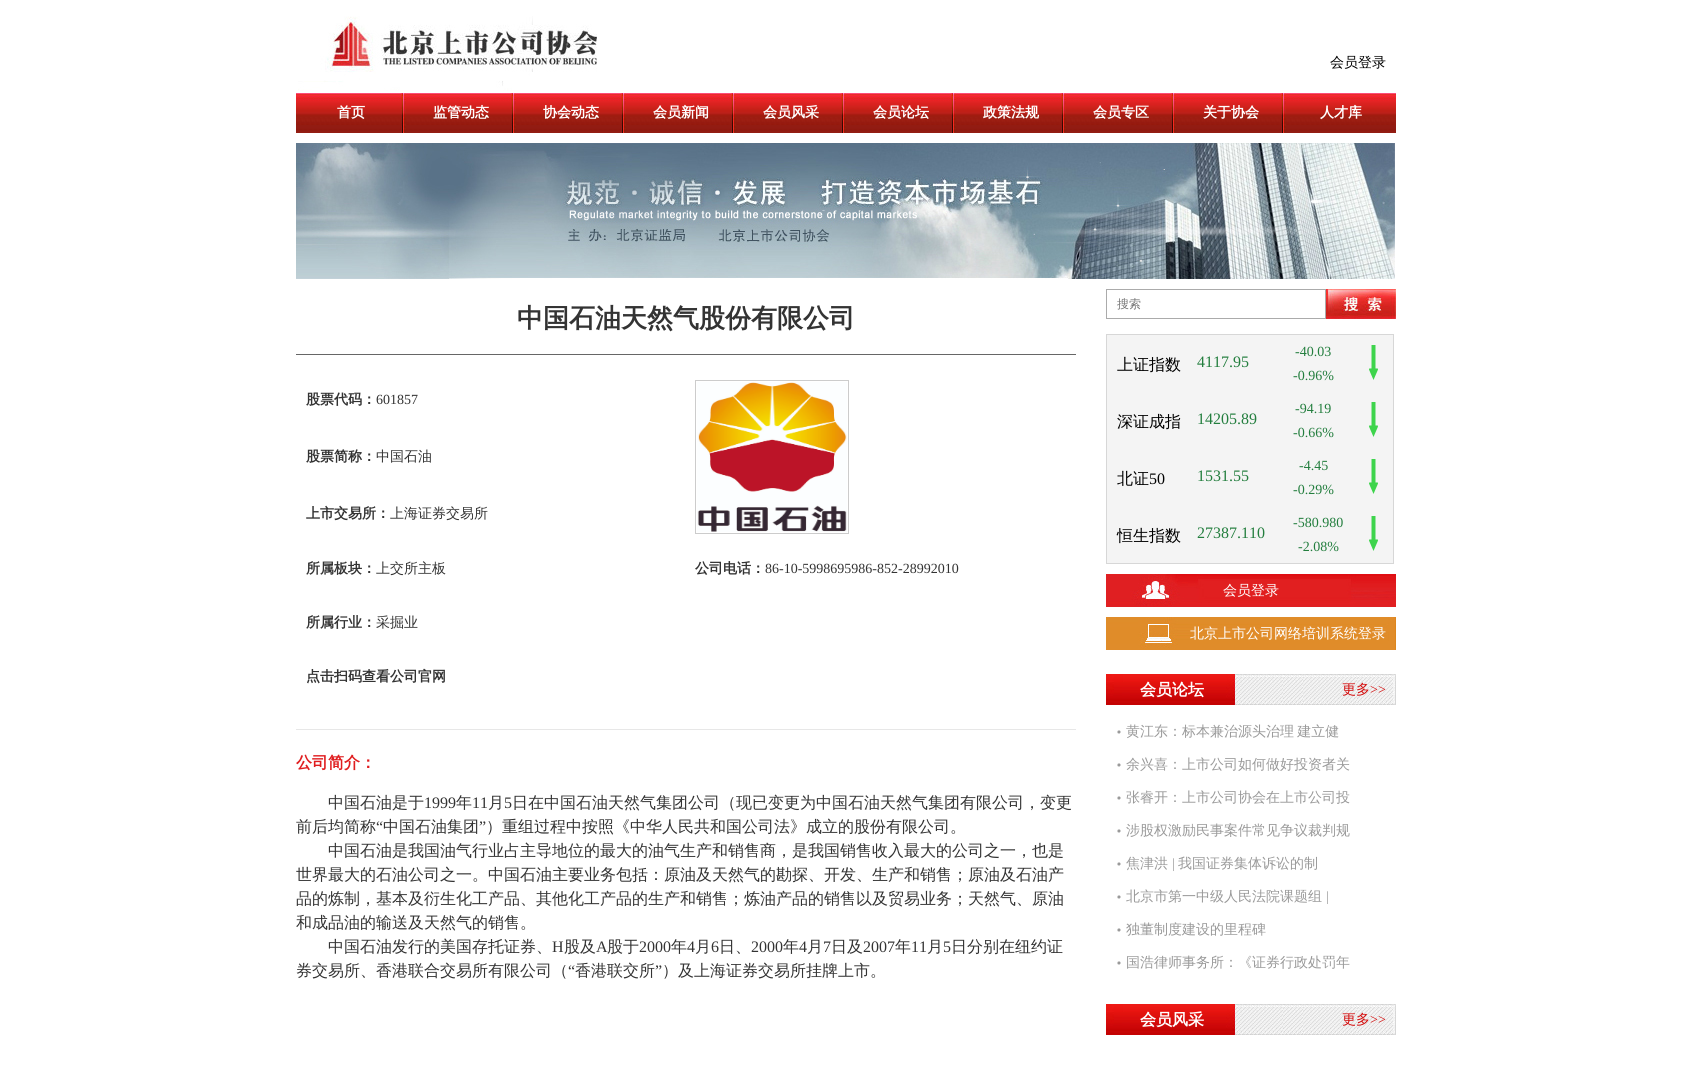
#include <cairo.h>
#include <math.h>
#include <stddef.h>

static cairo_t *c;
static void C(unsigned color){cairo_set_source_rgb(c, (color >> 16) / 255.0, (color >> 8 & 255) / 255.0, (color & 255) / 255.0);}
static void F(const char *family, double size, int italic, int bold){cairo_select_font_face(c, family, italic ? CAIRO_FONT_SLANT_ITALIC : CAIRO_FONT_SLANT_NORMAL,bold ? CAIRO_FONT_WEIGHT_BOLD : CAIRO_FONT_WEIGHT_NORMAL);cairo_set_font_size(c, size);}
static void T(double x, double y, const char *s){cairo_move_to(c, x, y);cairo_show_text(c, s);}
static void L(double x, double y, const char *s, double letter, double word){cairo_move_to(c, x, y);while (*s) {char ch[5] = {0};int n = 0;do ch[n++] = *s++; while ((*s & 0xC0) == 0x80);cairo_show_text(c, ch);cairo_rel_move_to(c, letter + word * (*ch == ' '), 0);}}
static void R(double x, double y, double w, double h){cairo_rectangle(c, x, y, w, h);cairo_fill(c);}
static void I(const char *path, double x, double y, double w, double h){cairo_surface_t *image = cairo_image_surface_create_from_png(path);cairo_save(c);cairo_set_source_surface(c, image, x, y);cairo_rectangle(c, x, y, w, h);cairo_fill(c);cairo_restore(c);cairo_surface_destroy(image);}
int main(void) {
cairo_surface_t *surface = cairo_image_surface_create(CAIRO_FORMAT_RGB24, 1692, 1076);
c = cairo_create(surface);
cairo_font_options_t *options = cairo_font_options_create();
cairo_font_options_set_hint_metrics(options, CAIRO_HINT_METRICS_OFF);
cairo_font_options_set_hint_style(options, CAIRO_HINT_STYLE_NONE);
cairo_set_font_options(c, options);
cairo_set_miter_limit(c, 4);
C(0xffffff);
cairo_paint(c);
I("1.png",298,16,299,75);
F("WenQuanYi Zen Hei Medium",14,0,0);
C(0x000000);
T(1330,67,"会员登录");
I("2.png",296,93,1100,40);
I("3.png",401,93,5,40);
F("WenQuanYi Zen Hei",14,0,1);
C(0xffffff);
T(337,117,"首页");
I("3.png",511,93,5,40);
T(433,117,"监管动态");
I("3.png",621,93,5,40);
T(543,117,"协会动态");
I("3.png",731,93,5,40);
T(653,117,"会员新闻");
I("3.png",841,93,5,40);
T(763,117,"会员风采");
I("3.png",951,93,5,40);
T(873,117,"会员论坛");
I("3.png",1061,93,5,40);
T(983,117,"政策法规");
I("3.png",1171,93,5,40);
T(1093,117,"会员专区");
I("3.png",1281,93,5,40);
T(1203,117,"关于协会");
T(1320,117,"人才库");
I("4.png",296,143,1099,136);
C(0x666666);
R(296,354,780,1);
F("WenQuanYi Zen Hei",26,0,1);
C(0x333333);
T(517,327,"中国石油天然气股份有限公司");
F("WenQuanYi Zen Hei",14,0,1);
T(306,404,"股票代码：");
F("Liberation Serif",14,0,0);
T(376,404,"601857");
cairo_rectangle(c,695.5,380.5,153,153);
C(0xcccccc);
cairo_set_line_width(c,1);
cairo_stroke(c);
I("5.png",697,382,150,150);
F("WenQuanYi Zen Hei",14,0,1);
C(0x333333);
T(306,461,"股票简称：");
F("WenQuanYi Zen Hei Medium",14,0,0);
T(376,461,"中国石油");
F("WenQuanYi Zen Hei",14,0,1);
T(306,518,"上市交易所：");
F("WenQuanYi Zen Hei Medium",14,0,0);
T(390,518,"上海证券交易所");
F("WenQuanYi Zen Hei",14,0,1);
T(306,573,"所属板块：");
F("WenQuanYi Zen Hei Medium",14,0,0);
T(376,573,"上交所主板");
F("WenQuanYi Zen Hei",14,0,1);
T(695,573,"公司电话：");
F("Liberation Serif",14,0,0);
T(765,573,"86-10-5998695986-852-28992010");
F("WenQuanYi Zen Hei",14,0,1);
T(306,627,"所属行业：");
F("WenQuanYi Zen Hei Medium",14,0,0);
T(376,627,"采掘业");
F("WenQuanYi Zen Hei",14,0,1);
T(306,681,"点击扫码查看公司官网");
C(0xe7e7e7);
R(296,729,780,1);
F("WenQuanYi Zen Hei",16,0,1);
C(0xe01d1f);
T(296,768,"公司简介：");
F("WenQuanYi Zen Hei Medium",16,0,0);
C(0x333333);
T(328,808,"中国石油是于");
F("Liberation Serif",16,0,0);
T(424,808,"1999");
F("WenQuanYi Zen Hei Medium",16,0,0);
T(456,808,"年");
F("Liberation Serif",16,0,0);
T(472,808,"11");
F("WenQuanYi Zen Hei Medium",16,0,0);
T(488,808,"月");
F("Liberation Serif",16,0,0);
T(504,808,"5");
F("WenQuanYi Zen Hei Medium",16,0,0);
T(512,808,"日在中国石油天然气集团公司（现已变更为中国石油天然气集团有限公司，变更");
T(296,832,"前后均简称");
F("Liberation Serif",16,0,0);
T(376,832,"“");
F("WenQuanYi Zen Hei Medium",16,0,0);
T(383,832,"中国石油集团");
F("Liberation Serif",16,0,0);
T(479,832,"”");
F("WenQuanYi Zen Hei Medium",16,0,0);
T(486,832,"）重组过程中按照《中华人民共和国公司法》成立的股份有限公司。");
T(328,856,"中国石油是我国油气行业占主导地位的最大的油气生产和销售商，是我国销售收入最大的公司之一，也是");
T(296,880,"世界最大的石油公司之一。中国石油主要业务包括：原油及天然气的勘探、开发、生产和销售；原油及石油产");
T(296,904,"品的炼制，基本及衍生化工产品、其他化工产品的生产和销售；炼油产品的销售以及贸易业务；天然气、原油");
T(296,928,"和成品油的输送及天然气的销售。");
T(328,952,"中国石油发行的美国存托证券、");
F("Liberation Serif",16,0,0);
T(552,952,"H");
F("WenQuanYi Zen Hei Medium",16,0,0);
T(564,952,"股及");
F("Liberation Serif",16,0,0);
T(596,952,"A");
F("WenQuanYi Zen Hei Medium",16,0,0);
T(607,952,"股于");
F("Liberation Serif",16,0,0);
T(639,952,"2000");
F("WenQuanYi Zen Hei Medium",16,0,0);
T(671,952,"年");
F("Liberation Serif",16,0,0);
T(687,952,"4");
F("WenQuanYi Zen Hei Medium",16,0,0);
T(695,952,"月");
F("Liberation Serif",16,0,0);
T(711,952,"6");
F("WenQuanYi Zen Hei Medium",16,0,0);
T(719,952,"日、");
F("Liberation Serif",16,0,0);
T(751,952,"2000");
F("WenQuanYi Zen Hei Medium",16,0,0);
T(783,952,"年");
F("Liberation Serif",16,0,0);
T(799,952,"4");
F("WenQuanYi Zen Hei Medium",16,0,0);
T(807,952,"月");
F("Liberation Serif",16,0,0);
T(823,952,"7");
F("WenQuanYi Zen Hei Medium",16,0,0);
T(831,952,"日及");
F("Liberation Serif",16,0,0);
T(863,952,"2007");
F("WenQuanYi Zen Hei Medium",16,0,0);
T(895,952,"年");
F("Liberation Serif",16,0,0);
T(911,952,"11");
F("WenQuanYi Zen Hei Medium",16,0,0);
T(927,952,"月");
F("Liberation Serif",16,0,0);
T(943,952,"5");
F("WenQuanYi Zen Hei Medium",16,0,0);
T(951,952,"日分别在纽约证");
T(296,976,"券交易所、香港联合交易所有限公司（");
F("Liberation Serif",16,0,0);
T(568,976,"“");
F("WenQuanYi Zen Hei Medium",16,0,0);
T(575,976,"香港联交所");
F("Liberation Serif",16,0,0);
T(655,976,"”");
F("WenQuanYi Zen Hei Medium",16,0,0);
T(662,976,"）及上海证券交易所挂牌上市。");
cairo_rectangle(c,1106.5,289.5,219,29);
C(0xababab);
cairo_stroke(c);
F("WenQuanYi Zen Hei Medium",12,0,0);
C(0x757575);
T(1117,308,"搜索");
I("6.png",1326,289,70,30);
cairo_rectangle(c,1106.5,334.5,287,229);
C(0xd7d7d7);
cairo_stroke(c);
C(0xf4f4f4);
R(1107,335,286,228);
F("WenQuanYi Zen Hei Medium",16,0,0);
C(0x000000);
T(1117,370,"上证指数");
F("Liberation Serif",16,0,0);
C(0x237e3e);
T(1197,367,"4117.95");
F("Liberation Serif",14,0,0);
T(1295,356,"-40.03");
T(1293,380,"-0.96%");
I("7.png",1369,345,9,35);
F("WenQuanYi Zen Hei Medium",16,0,0);
C(0x000000);
T(1117,427,"深证成指");
F("Liberation Serif",16,0,0);
C(0x237e3e);
T(1197,424,"14205.89");
F("Liberation Serif",14,0,0);
T(1295,413,"-94.19");
T(1293,437,"-0.66%");
I("7.png",1369,402,9,35);
F("WenQuanYi Zen Hei Medium",16,0,0);
C(0x000000);
T(1117,484,"北证");
F("Liberation Serif",16,0,0);
T(1149,484,"50");
C(0x237e3e);
T(1197,481,"1531.55");
F("Liberation Serif",14,0,0);
T(1299,470,"-4.45");
T(1293,494,"-0.29%");
I("7.png",1369,459,9,35);
F("WenQuanYi Zen Hei Medium",16,0,0);
C(0x000000);
T(1117,541,"恒生指数");
F("Liberation Serif",16,0,0);
C(0x237e3e);
T(1197,538,"27387.110");
F("Liberation Serif",14,0,0);
T(1293,527,"-580.980");
T(1298,551,"-2.08%");
I("7.png",1369,516,9,35);
I("8.png",1106,574,290,33);
F("WenQuanYi Zen Hei Medium",14,0,0);
C(0xffffff);
T(1223,595,"会员登录");
I("9.png",1106,617,290,33);
T(1190,638,"北京上市公司网络培训系统登录");
I("10.png",1106,674,290,31);
F("WenQuanYi Zen Hei",16,0,1);
T(1140,695,"会员论坛");
F("WenQuanYi Zen Hei Medium",14,0,0);
C(0xd30b0b);
T(1342,694,"更多");
F("Liberation Serif",14,0,0);
T(1370,694,">>");
I("11.png",1117,730,4,4);
F("WenQuanYi Zen Hei Medium",14,0,0);
C(0x999999);
L(1126,736,"黄江东：标本兼治源头治理 建立健",0,-1);
I("11.png",1117,763,4,4);
T(1126,769,"余兴喜：上市公司如何做好投资者关");
I("11.png",1117,796,4,4);
T(1126,802,"张睿开：上市公司协会在上市公司投");
I("11.png",1117,829,4,4);
T(1126,835,"涉股权激励民事案件常见争议裁判规");
I("11.png",1117,862,4,4);
T(1126,868,"焦津洪");
F("Liberation Serif",14,0,0);
T(1172,868,"|");
F("WenQuanYi Zen Hei Medium",14,0,0);
T(1178,868,"我国证券集体诉讼的制");
I("11.png",1117,895,4,4);
T(1126,901,"北京市第一中级人民法院课题组");
F("Liberation Serif",14,0,0);
T(1326,901,"|");
I("11.png",1117,928,4,4);
F("WenQuanYi Zen Hei Medium",14,0,0);
T(1126,934,"独董制度建设的里程碑");
I("11.png",1117,961,4,4);
T(1126,967,"国浩律师事务所：《证券行政处罚年");
I("10.png",1106,1004,290,31);
F("WenQuanYi Zen Hei",16,0,1);
C(0xffffff);
T(1140,1025,"会员风采");
F("WenQuanYi Zen Hei Medium",14,0,0);
C(0xd30b0b);
T(1342,1024,"更多");
F("Liberation Serif",14,0,0);
T(1370,1024,">>");
cairo_surface_write_to_png(surface, "o.png");
cairo_font_options_destroy(options);
cairo_destroy(c);
cairo_surface_destroy(surface);
return 0;
}
